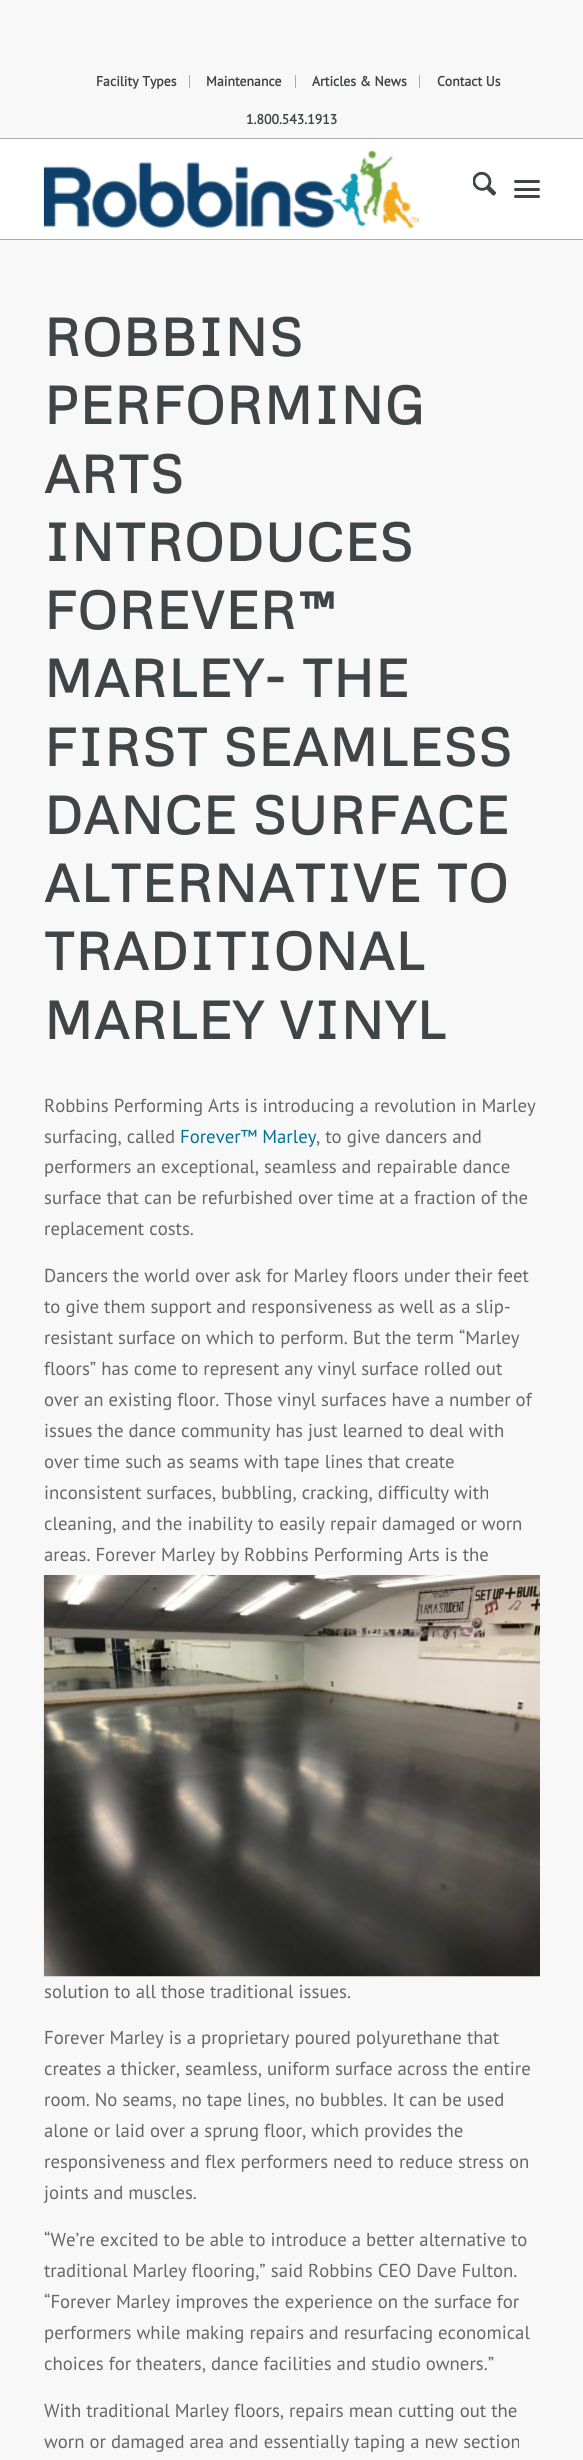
#include <cairo.h>
#include <math.h>
#include <stddef.h>

static cairo_t *c;
static void C(unsigned color){cairo_set_source_rgb(c, (color >> 16) / 255.0, (color >> 8 & 255) / 255.0, (color & 255) / 255.0);}
static void F(const char *family, double size, int italic, int bold){cairo_select_font_face(c, family, italic ? CAIRO_FONT_SLANT_ITALIC : CAIRO_FONT_SLANT_NORMAL,bold ? CAIRO_FONT_WEIGHT_BOLD : CAIRO_FONT_WEIGHT_NORMAL);cairo_set_font_size(c, size);}
static void T(double x, double y, const char *s){cairo_move_to(c, x, y);cairo_show_text(c, s);}
static void L(double x, double y, const char *s, double letter, double word){cairo_move_to(c, x, y);while (*s) {char ch[5] = {0};int n = 0;do ch[n++] = *s++; while ((*s & 0xC0) == 0x80);cairo_show_text(c, ch);cairo_rel_move_to(c, letter + word * (*ch == ' '), 0);}}
static void R(double x, double y, double w, double h){cairo_rectangle(c, x, y, w, h);cairo_fill(c);}
static void Q(double x, double y, double w, double h, double r){cairo_new_sub_path(c);cairo_arc(c, x + w - r, y + h - r, r, 0, M_PI / 2);cairo_arc(c, x + r, y + h - r, r, M_PI / 2, M_PI);cairo_arc(c, x + r, y + r, r, M_PI, 1.5 * M_PI);cairo_arc(c, x + w - r, y + r, r, 1.5 * M_PI, 2 * M_PI);cairo_close_path(c);}
static void I(const char *path, double x, double y, double w, double h){cairo_surface_t *image = cairo_image_surface_create_from_png(path);cairo_save(c);cairo_set_source_surface(c, image, x, y);cairo_rectangle(c, x, y, w, h);cairo_fill(c);cairo_restore(c);cairo_surface_destroy(image);}
int main(void) {
cairo_surface_t *surface = cairo_image_surface_create(CAIRO_FORMAT_RGB24, 583, 2460);
c = cairo_create(surface);
cairo_font_options_t *options = cairo_font_options_create();
cairo_font_options_set_hint_metrics(options, CAIRO_HINT_METRICS_OFF);
cairo_font_options_set_hint_style(options, CAIRO_HINT_STYLE_NONE);
cairo_set_font_options(c, options);
cairo_set_miter_limit(c, 4);
C(0xf8f8f8);
cairo_paint(c);
C(0xababab);
R(0,138,583,1);
R(189,75,1,13);
F("PT Sans",13.75,0,1);
C(0x3f4444);
T(96,86,"Facility Types");
C(0xababab);
R(295,75,1,13);
C(0x3f4444);
T(206,86,"Maintenance");
C(0xababab);
R(419,75,1,13);
C(0x3f4444);
T(312,86,"Articles & News");
T(437,86,"Contact Us");
T(246,124,"1.800.543.1913");
C(0xffffff);
R(0,139,583,100);
C(0xababab);
R(0,239,583,1);
I("1.png",43,150,376,79);
I("2.png",473,171,23,25);
C(0x3f4444);
Q(514,188,26,3,1.5);
cairo_fill(c);
Q(514,180,26,3,1.5);
cairo_fill(c);
Q(514,195,26,3,1.5);
cairo_fill(c);
F("Metrophobic",52.5,0,1);
L(44,356,"ROBBINS",1.25,0);
L(44,424,"PERFORMING",1.25,0);
L(44,493,"ARTS",1.25,0);
L(44,561,"INTRODUCES",1.25,0);
L(44,629,"FOREVER™",1.25,0);
L(44,697,"MARLEY- THE",1.25,0);
L(44,766,"FIRST SEAMLESS",1.25,0);
L(44,834,"DANCE SURFACE",1.25,0);
L(44,902,"ALTERNATIVE TO",1.25,0);
L(44,970,"TRADITIONAL",1.25,0);
L(44,1039,"MARLEY VINYL",1.25,0);
F("PT Sans",18.75,0,0);
C(0x666666);
T(44,1112,"Robbins Performing Arts is introducing a revolution in Marley");
T(44,1143,"surfacing, called");
C(0x007298);
T(180,1143,"Forever™ Marley");
C(0x666666);
T(316,1143,", to give dancers and");
T(44,1173,"performers an exceptional, seamless and repairable dance");
T(44,1204,"surface that can be refurbished over time at a fraction of the");
T(44,1235,"replacement costs.");
T(44,1282,"Dancers the world over ask for Marley floors under their feet");
T(44,1313,"to give them support and responsiveness as well as a slip-");
T(44,1344,"resistant surface on which to perform. But the term “Marley");
T(44,1375,"floors” has come to represent any vinyl surface rolled out");
T(44,1406,"over an existing floor. Those vinyl surfaces have a number of");
T(44,1437,"issues the dance community has just learned to deal with");
T(44,1468,"over time such as seams with tape lines that create");
T(44,1499,"inconsistent surfaces, bubbling, cracking, difficulty with");
T(44,1530,"cleaning, and the inability to easily repair damaged or worn");
T(44,1561,"areas. Forever Marley by Robbins Performing Arts is the");
I("3.png",43,1575,497,402);
T(44,1998,"solution to all those traditional issues.");
T(44,2044,"Forever Marley is a proprietary poured polyurethane that");
T(44,2075,"creates a thicker, seamless, uniform surface across the entire");
T(44,2106,"room. No seams, no tape lines, no bubbles. It can be used");
T(44,2137,"alone or laid over a sprung floor, which provides the");
T(44,2168,"responsiveness and flex performers need to reduce stress on");
T(44,2199,"joints and muscles.");
T(44,2246,"“We’re excited to be able to introduce a better alternative to");
T(44,2277,"traditional Marley flooring,” said Robbins CEO Dave Fulton.");
T(44,2308,"“Forever Marley improves the experience on the surface for");
T(44,2339,"performers while making repairs and resurfacing economical");
T(44,2370,"choices for theaters, dance facilities and studio owners.”");
T(44,2417,"With traditional Marley floors, repairs mean cutting out the");
T(44,2448,"worn or damaged area and essentially taping a new section");
cairo_surface_write_to_png(surface, "o.png");
cairo_font_options_destroy(options);
cairo_destroy(c);
cairo_surface_destroy(surface);
return 0;
}
